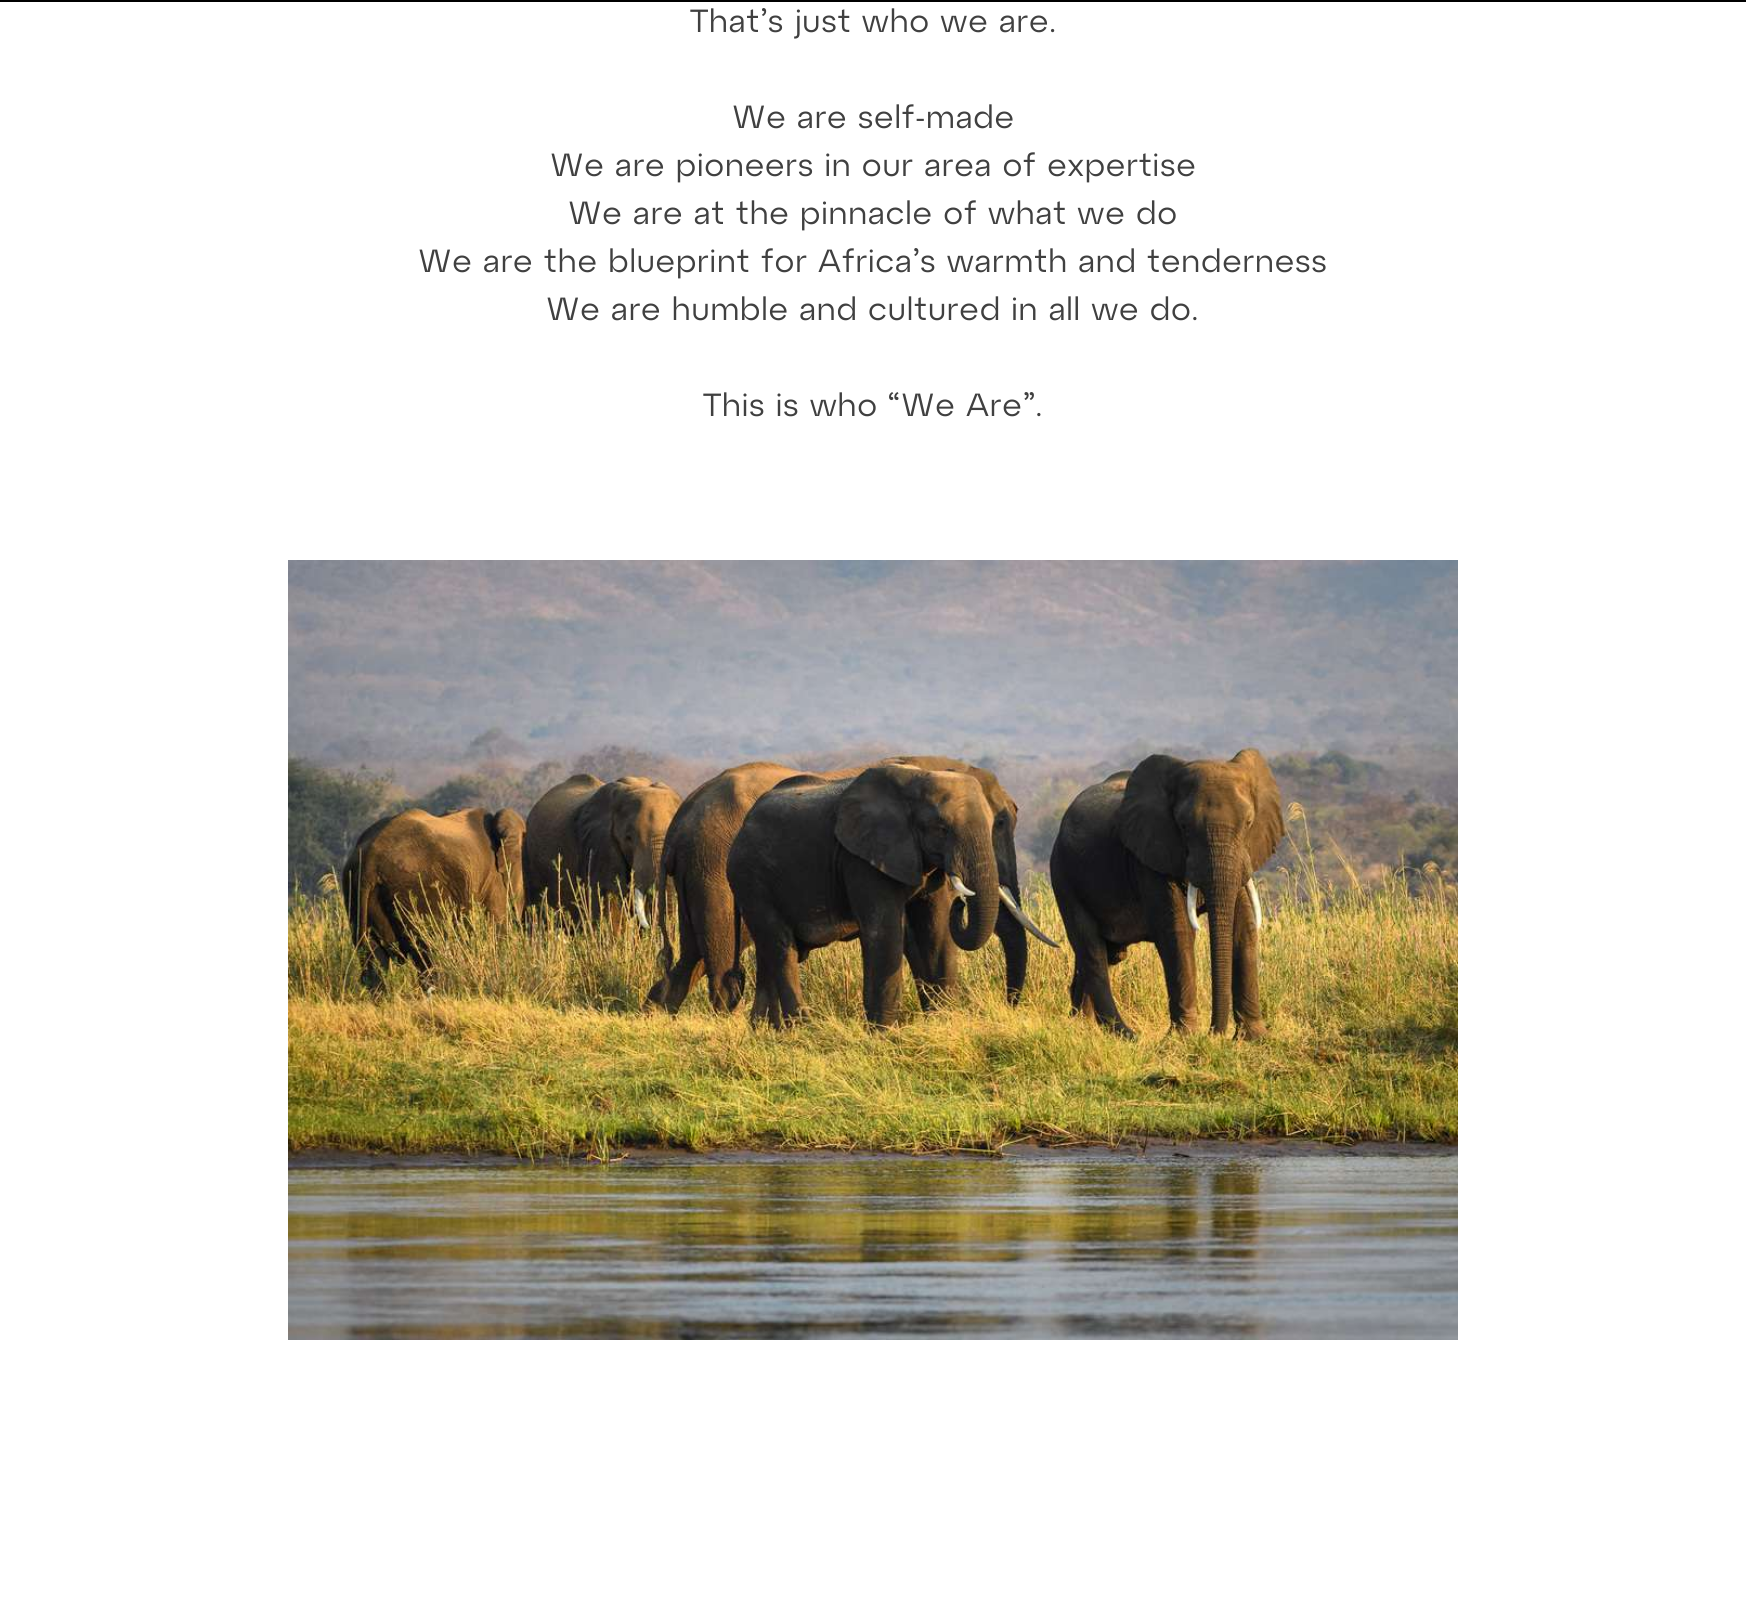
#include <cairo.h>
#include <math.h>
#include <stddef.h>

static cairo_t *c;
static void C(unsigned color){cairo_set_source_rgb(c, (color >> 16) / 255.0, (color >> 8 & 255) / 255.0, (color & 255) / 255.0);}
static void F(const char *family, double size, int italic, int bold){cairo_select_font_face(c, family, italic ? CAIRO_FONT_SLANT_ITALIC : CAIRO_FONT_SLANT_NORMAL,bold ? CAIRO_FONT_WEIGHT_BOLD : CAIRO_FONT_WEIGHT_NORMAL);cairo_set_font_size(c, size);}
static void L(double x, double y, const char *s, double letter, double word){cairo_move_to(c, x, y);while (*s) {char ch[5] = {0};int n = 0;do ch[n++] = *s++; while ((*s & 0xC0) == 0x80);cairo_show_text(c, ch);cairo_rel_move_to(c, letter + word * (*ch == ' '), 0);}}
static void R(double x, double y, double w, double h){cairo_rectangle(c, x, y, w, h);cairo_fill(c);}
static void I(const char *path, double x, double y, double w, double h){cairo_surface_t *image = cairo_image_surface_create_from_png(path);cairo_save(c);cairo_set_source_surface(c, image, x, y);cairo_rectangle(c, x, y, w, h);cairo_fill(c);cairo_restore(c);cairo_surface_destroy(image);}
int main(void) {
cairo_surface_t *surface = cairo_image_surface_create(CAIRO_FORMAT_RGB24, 1746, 1615);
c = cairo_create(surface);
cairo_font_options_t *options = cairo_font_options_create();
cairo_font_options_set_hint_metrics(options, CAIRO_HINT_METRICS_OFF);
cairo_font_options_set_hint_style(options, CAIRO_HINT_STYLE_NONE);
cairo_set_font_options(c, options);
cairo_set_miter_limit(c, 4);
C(0xffffff);
cairo_paint(c);
C(0x000000);
R(0,0,1746,2);
F("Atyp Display",32,0,0);
C(0x404040);
L(690,32,"That’s just who we are.",.8,0);
L(732,128,"We are self-made",.8,0);
L(550,176,"We are pioneers in our area of expertise",.8,0);
L(568,224,"We are at the pinnacle of what we do",.8,0);
L(418,272,"We are the blueprint for Africa’s warmth and tenderness",.8,0);
L(546,320,"We are humble and cultured in all we do.",.8,0);
L(703,416,"This is who “We Are”.",.8,0);
I("1.png",288,560,1170,780);
cairo_surface_write_to_png(surface, "o.png");
cairo_font_options_destroy(options);
cairo_destroy(c);
cairo_surface_destroy(surface);
return 0;
}
